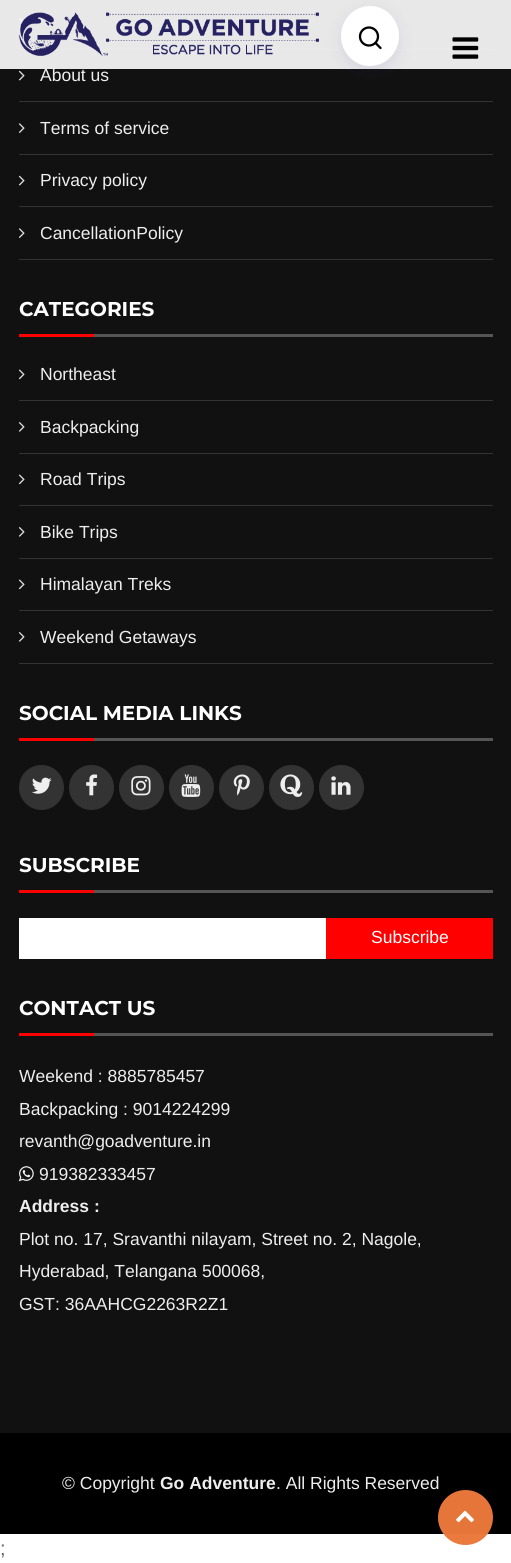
#include <cairo.h>
#include <math.h>
#include <stddef.h>

static cairo_t *c;
static void C(unsigned color){cairo_set_source_rgb(c, (color >> 16) / 255.0, (color >> 8 & 255) / 255.0, (color & 255) / 255.0);}
static void F(const char *family, double size, int italic, int bold){cairo_select_font_face(c, family, italic ? CAIRO_FONT_SLANT_ITALIC : CAIRO_FONT_SLANT_NORMAL,bold ? CAIRO_FONT_WEIGHT_BOLD : CAIRO_FONT_WEIGHT_NORMAL);cairo_set_font_size(c, size);}
static void T(double x, double y, const char *s){cairo_move_to(c, x, y);cairo_show_text(c, s);}
static void R(double x, double y, double w, double h){cairo_rectangle(c, x, y, w, h);cairo_fill(c);}
static void Q(double x, double y, double w, double h, double r){cairo_new_sub_path(c);cairo_arc(c, x + w - r, y + h - r, r, 0, M_PI / 2);cairo_arc(c, x + r, y + h - r, r, M_PI / 2, M_PI);cairo_arc(c, x + r, y + r, r, M_PI, 1.5 * M_PI);cairo_arc(c, x + w - r, y + r, r, 1.5 * M_PI, 2 * M_PI);cairo_close_path(c);}
static void S(double x, double y, double w, double h, double r, double blur, double alpha){cairo_push_group_with_content(c, CAIRO_CONTENT_ALPHA);cairo_set_operator(c, CAIRO_OPERATOR_SOURCE);for (int i = 15; i >= -15 && fmin(w, h) + blur * i / 3 > 0; i -= 2) {double e = blur * i / 6;cairo_set_source_rgba(c, 0, 0, 0, alpha * erfc((i - 1) / 8.5) / 2);Q(x - e, y - e, w + 2 * e, h + 2 * e, fmax(0, fmin(r + e + blur * .6, fmin(w, h) / 2 + e)));cairo_fill(c);}cairo_pattern_t *soft = cairo_pop_group(c);cairo_mask(c, soft);cairo_pattern_destroy(soft);}
static void I(const char *path, double x, double y, double w, double h){cairo_surface_t *image = cairo_image_surface_create_from_png(path);cairo_save(c);cairo_set_source_surface(c, image, x, y);cairo_rectangle(c, x, y, w, h);cairo_fill(c);cairo_restore(c);cairo_surface_destroy(image);}
int main(void) {
cairo_surface_t *surface = cairo_image_surface_create(CAIRO_FORMAT_RGB24, 511, 1563);
c = cairo_create(surface);
cairo_font_options_t *options = cairo_font_options_create();
cairo_font_options_set_hint_metrics(options, CAIRO_HINT_METRICS_OFF);
cairo_font_options_set_hint_style(options, CAIRO_HINT_STYLE_NONE);
cairo_set_font_options(c, options);
cairo_set_miter_limit(c, 4);
C(0xffffff);
cairo_paint(c);
C(0x111111);
R(0,0,511,1433);
C(0x333333);
R(19,49,474,1);
I("3.png",18,18,6,10);
F("Liberation Sans",17.5,0,0);
C(0xeeeeee);
T(40,81,"About us");
cairo_set_source_rgba(c,1,1,1,0.9);
R(0,0,511,69);
I("1.png",452,37,27,22);
I("2.png",18,12,301,44);
C(0x442993);
S(341,11,58,60,29,7.5,.1);
C(0xffffff);
cairo_new_path(c);
cairo_move_to(c,370,6);
cairo_curve_to(c,386,6,399,19.5,399,36);
cairo_curve_to(c,399,52.5,386,66,370,66);
cairo_curve_to(c,354,66,341,52.5,341,36);
cairo_curve_to(c,341,19.5,354,6,370,6);
cairo_close_path(c);
cairo_fill(c);
cairo_arc(c,369,36.5,9,0,2 * M_PI);
C(0x000000);
cairo_set_line_width(c,2.3);
cairo_stroke(c);
cairo_new_path(c);
cairo_move_to(c,380.5,48);
cairo_line_to(c,375.5,43);
cairo_set_line_cap(c,CAIRO_LINE_CAP_ROUND);
cairo_set_line_join(c,CAIRO_LINE_JOIN_ROUND);
cairo_stroke(c);
R(0,1433,511,101);
C(0x333333);
R(19,101,474,1);
I("4.png",18,70,7,11);
R(19,154,474,1);
I("5.png",18,123,7,10);
C(0xeeeeee);
T(40,134,"Terms of service");
C(0x333333);
R(19,206,474,1);
I("4.png",18,175,7,11);
C(0xeeeeee);
T(40,186,"Privacy policy");
C(0x333333);
R(19,259,474,1);
I("5.png",18,228,7,10);
C(0xeeeeee);
T(40,239,"CancellationPolicy");
F("Montserrat",20,0,1);
C(0xffffff);
T(19,316,"CATEGORIES");
C(0xff0000);
R(19,334,75,3);
C(0x555555);
R(94,334,399,3);
C(0x333333);
R(19,400,474,1);
I("6.png",18,369,7,11);
F("Liberation Sans",17.5,0,0);
C(0xeeeeee);
T(40,380,"Northeast");
C(0x333333);
R(19,453,474,1);
I("7.png",18,422,7,10);
C(0xeeeeee);
T(40,433,"Backpacking");
C(0x333333);
R(19,505,474,1);
I("6.png",18,474,7,11);
C(0xeeeeee);
T(40,485,"Road Trips");
C(0x333333);
R(19,558,474,1);
I("7.png",18,527,7,10);
C(0xeeeeee);
T(40,538,"Bike Trips");
C(0x333333);
R(19,610,474,1);
I("6.png",18,579,7,11);
C(0xeeeeee);
T(40,590,"Himalayan Treks");
C(0x333333);
R(19,663,474,1);
I("7.png",18,632,7,10);
C(0xeeeeee);
T(40,643,"Weekend Getaways");
F("Montserrat",20,0,1);
C(0xffffff);
T(19,720,"SOCIAL MEDIA LINKS");
C(0xff0000);
R(19,738,75,3);
C(0x555555);
R(94,738,399,3);
C(0x333333);
cairo_new_path(c);
cairo_arc(c,41.5,787.5,22.5,0,2 * M_PI);
cairo_fill(c);
I("8.png",32,777,20,17);
cairo_arc(c,91.5,787.5,22.5,0,2 * M_PI);
cairo_fill(c);
I("9.png",86,774,12,22);
cairo_arc(c,141.5,787.5,22.5,0,2 * M_PI);
cairo_fill(c);
I("10.png",131,776,20,20);
cairo_arc(c,191.5,787.5,22.5,0,2 * M_PI);
cairo_fill(c);
I("11.png",181,774,20,23);
cairo_arc(c,241.5,787.5,22.5,0,2 * M_PI);
cairo_fill(c);
I("12.png",233,774,17,22);
cairo_arc(c,291.5,787.5,22.5,0,2 * M_PI);
cairo_fill(c);
I("13.png",280,774,23,23);
cairo_arc(c,341.5,787.5,22.5,0,2 * M_PI);
cairo_fill(c);
I("14.png",331,776,20,19);
C(0xffffff);
T(19,872,"SUBSCRIBE");
C(0xff0000);
R(19,890,75,3);
C(0x555555);
R(94,890,399,3);
C(0xffffff);
R(19,918,307,41);
C(0xff0000);
R(326,918,167,41);
F("Liberation Sans",17.5,0,0);
C(0xffffff);
T(371,943,"Subscribe");
F("Montserrat",20,0,1);
T(19,1015,"CONTACT US");
C(0xff0000);
R(19,1033,75,3);
C(0x555555);
R(94,1033,399,3);
F("Liberation Sans",17.5,0,0);
C(0xeeeeee);
T(19,1082,"Weekend : 8885785457");
T(19,1115,"Backpacking : 9014224299");
T(19,1147,"revanth@goadventure.in");
I("15.png",18,1166,16,16);
T(39,1180,"919382333457");
F("Liberation Sans",17.5,0,1);
T(19,1212,"Address :");
F("Liberation Sans",17.5,0,0);
T(19,1245,"Plot no. 17, Sravanthi nilayam, Street no. 2, Nagole,");
T(19,1277,"Hyderabad, Telangana 500068,");
T(19,1310,"GST: 36AAHCG2263R2Z1");
T(62,1489,"© Copyright");
F("Liberation Sans",17.5,0,1);
T(160,1489,"Go Adventure");
F("Liberation Sans",17.5,0,0);
T(276,1489,". All Rights Reserved");
cairo_set_source_rgba(c,0.914,0.467,0.227,0.98);
cairo_new_path(c);
cairo_arc(c,465.5,1517.5,27.5,0,2 * M_PI);
cairo_fill(c);
I("16.png",456,1510,18,13);
F("Liberation Sans",20,0,0);
C(0x666666);
T(0,1555,";");
cairo_surface_write_to_png(surface, "o.png");
cairo_font_options_destroy(options);
cairo_destroy(c);
cairo_surface_destroy(surface);
return 0;
}
